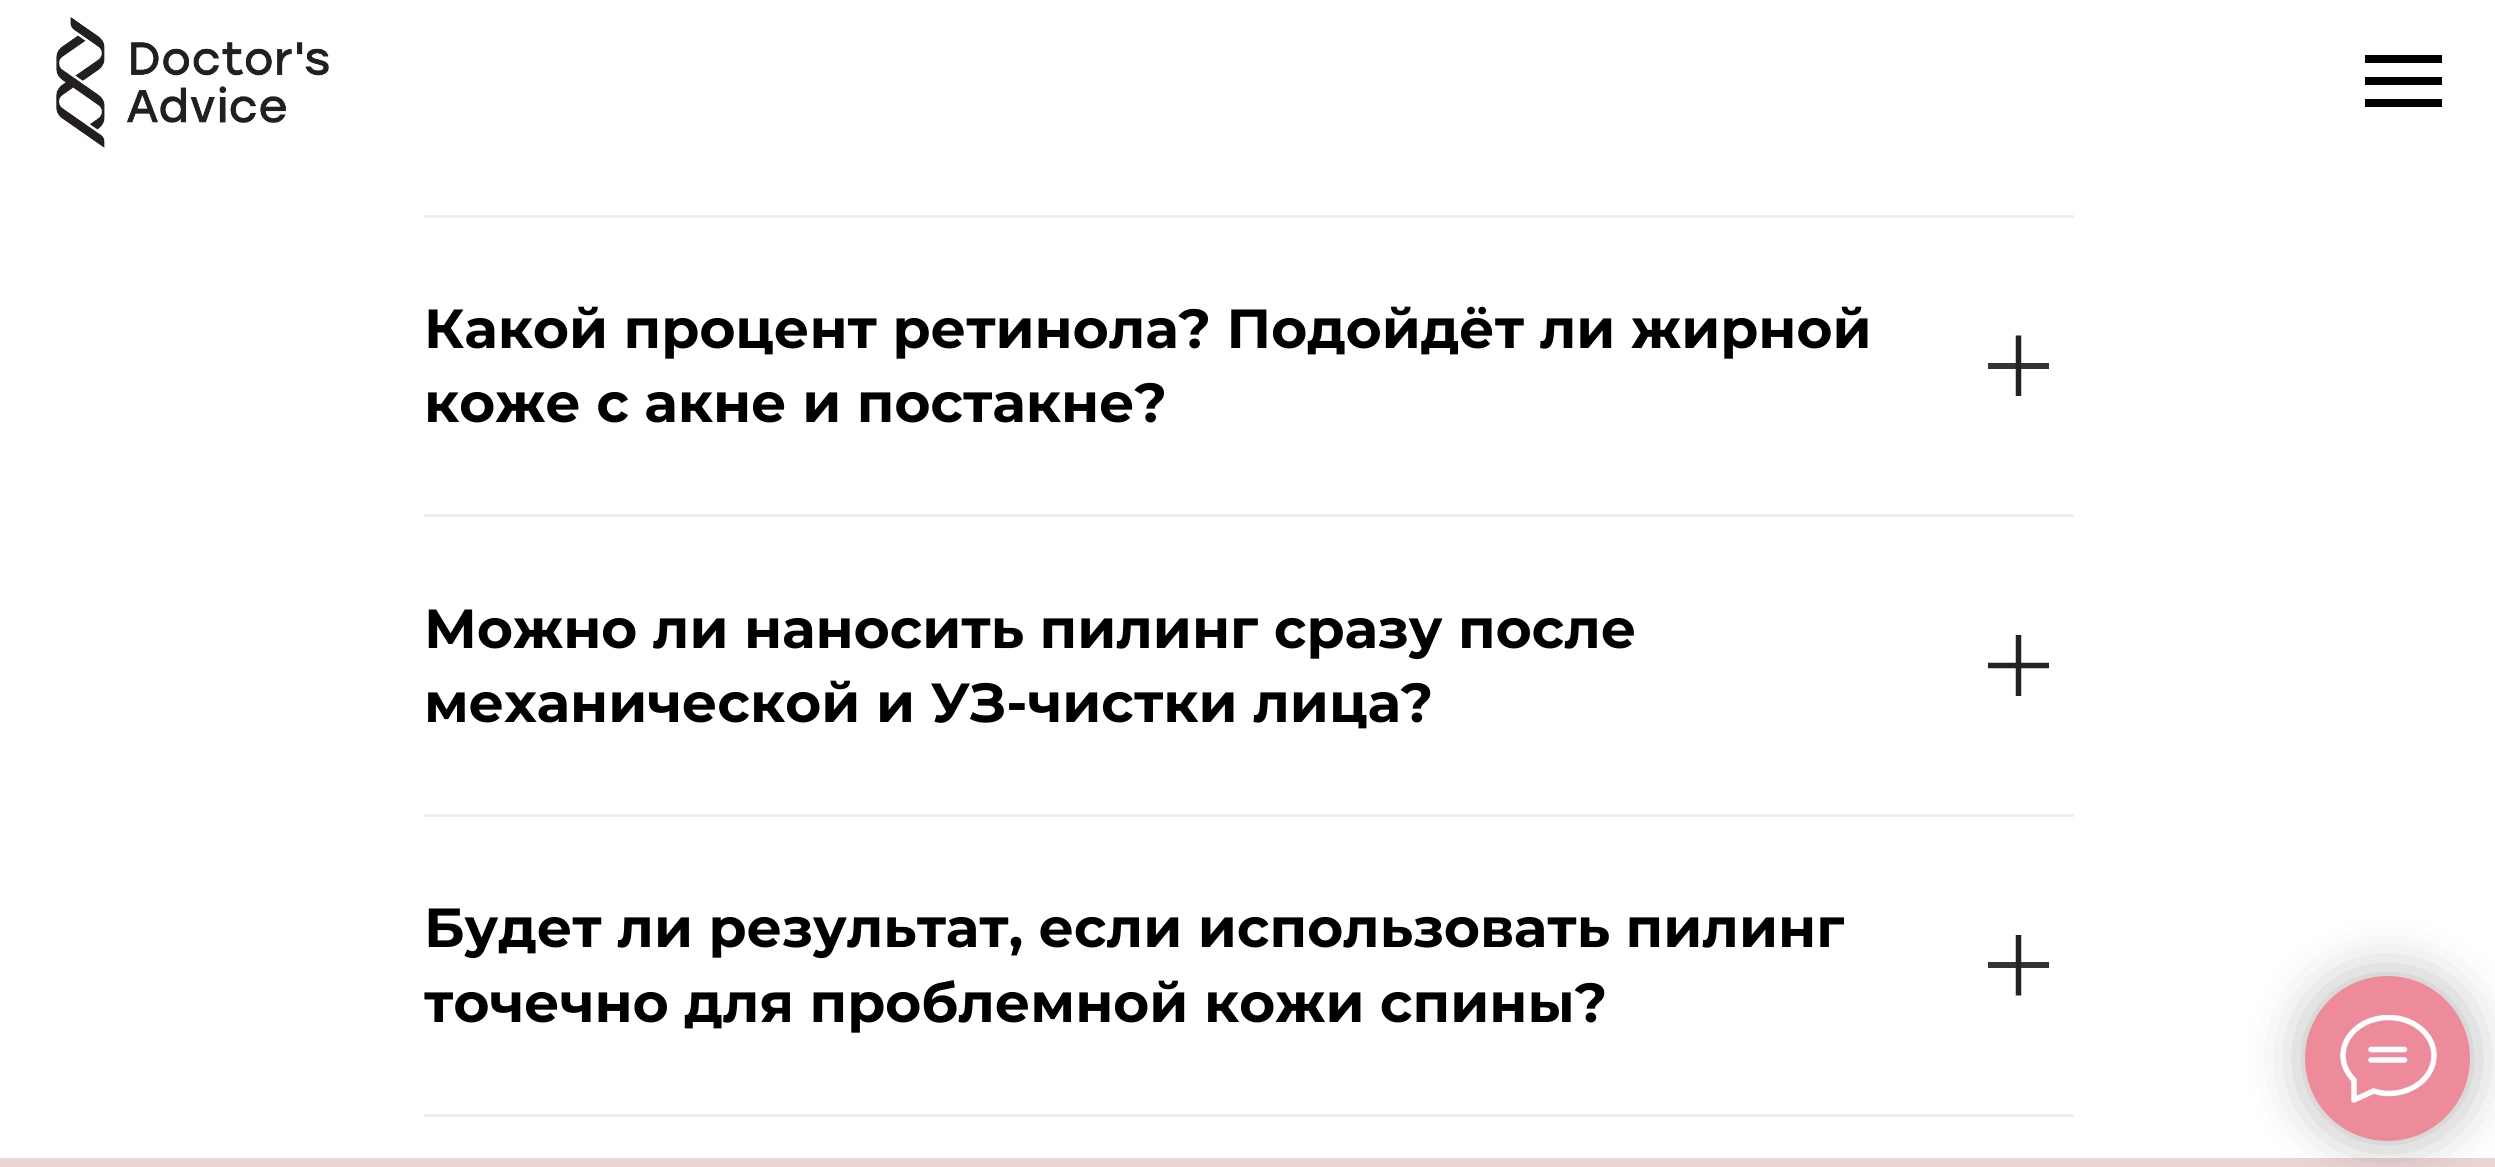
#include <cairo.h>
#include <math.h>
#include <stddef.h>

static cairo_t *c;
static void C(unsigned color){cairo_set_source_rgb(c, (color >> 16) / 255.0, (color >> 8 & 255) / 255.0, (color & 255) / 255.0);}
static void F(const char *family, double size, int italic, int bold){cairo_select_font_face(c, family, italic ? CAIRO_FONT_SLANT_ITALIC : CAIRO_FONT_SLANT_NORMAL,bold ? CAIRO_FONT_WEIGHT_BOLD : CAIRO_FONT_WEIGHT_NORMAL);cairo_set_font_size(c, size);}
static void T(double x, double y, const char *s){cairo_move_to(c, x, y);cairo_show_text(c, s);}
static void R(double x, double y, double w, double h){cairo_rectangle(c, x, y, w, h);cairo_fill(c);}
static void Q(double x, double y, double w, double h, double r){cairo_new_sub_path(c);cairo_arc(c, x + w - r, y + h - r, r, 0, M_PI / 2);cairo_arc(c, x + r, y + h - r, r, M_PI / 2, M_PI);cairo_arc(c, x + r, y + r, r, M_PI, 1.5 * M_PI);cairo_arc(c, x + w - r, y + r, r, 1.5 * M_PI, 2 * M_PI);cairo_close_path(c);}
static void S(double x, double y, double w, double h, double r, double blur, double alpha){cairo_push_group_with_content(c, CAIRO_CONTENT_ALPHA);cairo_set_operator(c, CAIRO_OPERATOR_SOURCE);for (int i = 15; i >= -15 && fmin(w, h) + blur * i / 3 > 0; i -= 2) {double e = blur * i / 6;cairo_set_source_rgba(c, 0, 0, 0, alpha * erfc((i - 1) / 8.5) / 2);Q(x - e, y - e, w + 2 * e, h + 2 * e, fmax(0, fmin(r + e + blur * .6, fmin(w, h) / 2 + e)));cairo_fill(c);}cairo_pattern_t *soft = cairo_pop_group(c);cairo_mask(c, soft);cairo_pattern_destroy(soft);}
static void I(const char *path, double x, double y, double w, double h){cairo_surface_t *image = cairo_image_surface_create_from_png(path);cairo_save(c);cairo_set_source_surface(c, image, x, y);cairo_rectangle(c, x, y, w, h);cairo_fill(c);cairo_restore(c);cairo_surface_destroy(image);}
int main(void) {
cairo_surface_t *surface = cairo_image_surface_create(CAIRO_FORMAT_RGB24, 2495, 1167);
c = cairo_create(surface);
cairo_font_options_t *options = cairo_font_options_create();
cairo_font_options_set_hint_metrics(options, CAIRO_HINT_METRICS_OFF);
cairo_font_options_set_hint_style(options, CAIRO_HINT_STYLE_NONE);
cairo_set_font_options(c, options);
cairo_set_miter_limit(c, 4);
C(0xffffff);
cairo_paint(c);
I("1.png",56,17,273,131);
C(0x000000);
R(2365,55,77,8);
R(2365,77,77,8);
R(2365,99,77,8);
C(0xeeeeee);
R(424,215,1650,3);
F("Montserrat",55,0,1);
C(0x000000);
T(424,348,"Какой процент ретинола? Подойдёт ли жирной");
T(424,422,"коже с акне и постакне?");
C(0x343434);
R(1988,363,61,6);
cairo_new_path(c);
cairo_move_to(c,2018.5,335.5);
cairo_line_to(c,2018.5,396);
C(0x222222);
cairo_set_line_width(c,5.5);
cairo_stroke(c);
C(0xeeeeee);
R(424,514,1650,3);
C(0x000000);
T(424,648,"Можно ли наносить пилинг сразу после");
T(424,722,"механической и УЗ-чистки лица?");
cairo_new_path(c);
cairo_move_to(c,1988,665.5);
cairo_line_to(c,2049,665.5);
cairo_move_to(c,2018.5,635);
cairo_line_to(c,2018.5,696);
C(0x222222);
cairo_stroke(c);
C(0xeeeeee);
R(424,814,1650,3);
C(0x000000);
T(424,947,"Будет ли результат, если использовать пилинг");
T(424,1022,"точечно для проблемной кожи спины?");
C(0x343434);
R(1988,962,61,6);
cairo_new_path(c);
cairo_move_to(c,2018.5,935);
cairo_line_to(c,2018.5,995.5);
C(0x222222);
cairo_stroke(c);
C(0xeeeeee);
R(424,1114,1650,3);
C(0xebd6d6);
R(0,1158,2495,9);
C(0x000000);
S(2305,976,165,165,82.5,27.5,.3);
C(0xee8b9b);
cairo_arc(c,2387.5,1058.5,82.5,0,2 * M_PI);
cairo_fill(c);
cairo_save(c);
cairo_rectangle(c,2340,1015,97,88);
cairo_clip(c);
cairo_new_path(c);
cairo_move_to(c,2371,1049.5);
cairo_line_to(c,2404.5,1049.5);
cairo_move_to(c,2371,1060);
cairo_line_to(c,2404.5,1060);
cairo_move_to(c,2353.5,1079.5);
cairo_curve_to(c,2347,1073,2343,1064.5,2343,1055.5);
cairo_curve_to(c,2343,1034.5,2363.5,1017.5,2388.5,1017.5);
cairo_curve_to(c,2413.5,1017.5,2434,1034.5,2434,1055.5);
cairo_curve_to(c,2434,1076.5,2413.5,1093.5,2388.5,1093.5);
cairo_curve_to(c,2383,1093.5,2378.5,1092.5,2373.5,1091);
cairo_line_to(c,2354,1100);
cairo_line_to(c,2354,1080.5);
cairo_close_path(c);
C(0xffffff);
cairo_set_line_cap(c,CAIRO_LINE_CAP_ROUND);
cairo_set_line_join(c,CAIRO_LINE_JOIN_ROUND);
cairo_stroke(c);
cairo_restore(c);
cairo_surface_write_to_png(surface, "o.png");
cairo_font_options_destroy(options);
cairo_destroy(c);
cairo_surface_destroy(surface);
return 0;
}
